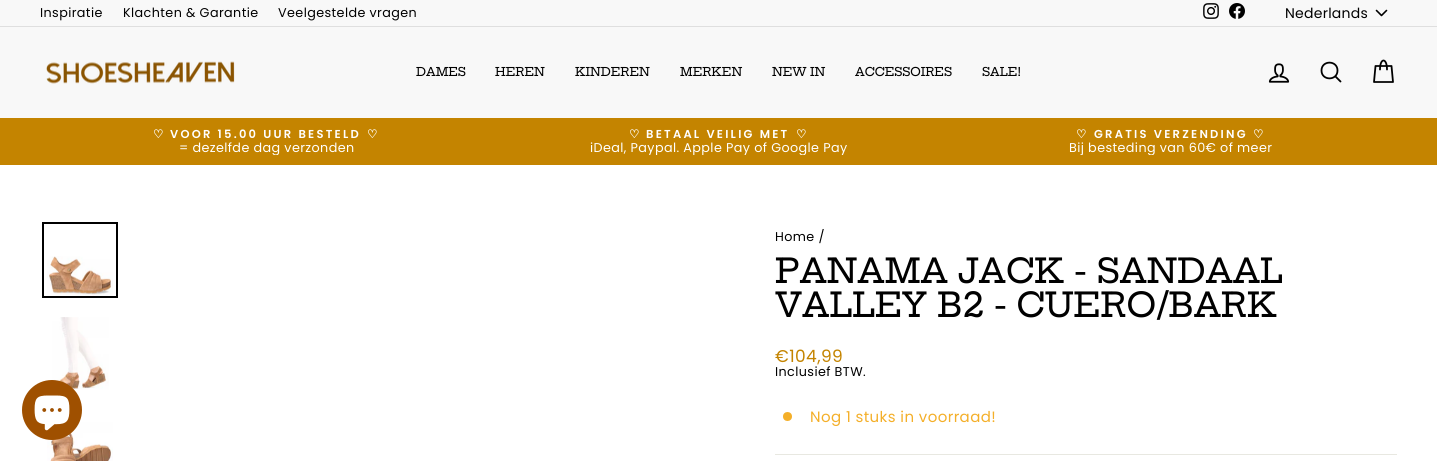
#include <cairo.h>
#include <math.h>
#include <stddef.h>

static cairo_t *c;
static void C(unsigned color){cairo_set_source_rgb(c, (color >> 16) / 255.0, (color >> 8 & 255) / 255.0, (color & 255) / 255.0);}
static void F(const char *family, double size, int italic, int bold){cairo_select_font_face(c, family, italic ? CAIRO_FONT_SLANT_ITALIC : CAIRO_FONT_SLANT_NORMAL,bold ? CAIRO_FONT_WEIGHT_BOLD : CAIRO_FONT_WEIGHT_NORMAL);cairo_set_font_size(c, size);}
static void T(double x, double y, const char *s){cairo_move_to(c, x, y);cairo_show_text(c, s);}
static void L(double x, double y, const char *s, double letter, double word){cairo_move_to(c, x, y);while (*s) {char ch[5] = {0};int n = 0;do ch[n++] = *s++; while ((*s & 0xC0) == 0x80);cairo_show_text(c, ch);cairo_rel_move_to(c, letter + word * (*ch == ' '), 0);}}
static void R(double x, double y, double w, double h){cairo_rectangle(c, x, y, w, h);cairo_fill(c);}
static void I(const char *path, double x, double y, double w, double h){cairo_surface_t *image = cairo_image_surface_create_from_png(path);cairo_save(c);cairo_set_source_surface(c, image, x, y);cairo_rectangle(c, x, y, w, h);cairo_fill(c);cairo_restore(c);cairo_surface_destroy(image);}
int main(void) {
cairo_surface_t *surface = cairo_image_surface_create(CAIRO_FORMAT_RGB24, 1437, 461);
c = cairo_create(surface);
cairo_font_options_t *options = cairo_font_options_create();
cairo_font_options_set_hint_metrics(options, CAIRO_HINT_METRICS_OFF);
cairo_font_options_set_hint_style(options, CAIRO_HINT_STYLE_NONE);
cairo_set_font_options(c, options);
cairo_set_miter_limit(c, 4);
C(0xffffff);
cairo_paint(c);
C(0xf8f8f8);
R(0,0,1437,26);
F("Poppins",12.75,0,0);
C(0x000000);
L(40,17,"Inspiratie",.4,0);
L(123,17,"Klachten & Garantie",.4,0);
L(278,17,"Veelgestelde vragen",.4,0);
I("1.png",1203,3,16,16);
I("2.png",1229,3,16,16);
F("Poppins",14,0,0);
L(1285,18,"Nederlands",.25,0);
cairo_new_path(c);
cairo_move_to(c,1376.5,10.5);
cairo_line_to(c,1381.5,15.5);
cairo_line_to(c,1386.5,10.5);
cairo_set_line_width(c,1.6);
cairo_set_line_cap(c,CAIRO_LINE_CAP_ROUND);
cairo_set_line_join(c,CAIRO_LINE_JOIN_ROUND);
cairo_stroke(c);
C(0xf8f8f8);
R(0,27,1437,91);
C(0xdfdfdf);
R(0,26,1437,1);
I("3.png",46,61,189,23);
F("Hepta Slab Medium",12,0,0);
C(0x000000);
T(416,76,"DAMES");
T(495,76,"HEREN");
T(575,76,"KINDEREN");
T(680,76,"MERKEN");
T(772,76,"NEW IN");
T(855,76,"ACCESSOIRES");
T(982,76,"SALE!");
I("4.png",1268,63,22,20);
cairo_new_path(c);
cairo_move_to(c,1337.5,70.5);
cairo_curve_to(c,1337.5,81,1321.5,81,1321.5,70.5);
cairo_curve_to(c,1321.5,60,1337.5,60,1337.5,70.5);
cairo_close_path(c);
cairo_move_to(c,1340.5,81.5);
cairo_line_to(c,1335.5,76.5);
cairo_set_line_width(c,1.8);
cairo_stroke(c);
cairo_new_path(c);
cairo_move_to(c,1380,69.5);
cairo_curve_to(c,1380,57.5,1387,57.5,1387,69.5);
cairo_move_to(c,1375.5,66);
cairo_line_to(c,1391.5,66);
cairo_line_to(c,1393,82);
cairo_line_to(c,1374,82);
cairo_close_path(c);
cairo_stroke(c);
C(0xc48400);
R(0,118,1437,47);
F("DejaVu Sans",11.5,0,1);
C(0xffffff);
L(153,138,"♡",2.25,0);
F("Poppins SemiBold",11.5,0,0);
L(170,138,"VOOR 15.00 UUR BESTELD",2.25,0);
F("DejaVu Sans",11.5,0,1);
L(367,138,"♡",2.25,0);
cairo_save(c);
cairo_rectangle(c,40,128,452,27);
cairo_clip(c);
F("Poppins",12.75,0,0);
L(179,152,"= dezelfde dag verzonden",.4,0);
cairo_restore(c);
L(629,138,"♡",2.25,0);
F("Poppins SemiBold",11.5,0,0);
L(646,138,"BETAAL VEILIG MET",2.25,0);
F("DejaVu Sans",11.5,0,1);
L(796,138,"♡",2.25,0);
cairo_save(c);
cairo_rectangle(c,492,128,453,27);
cairo_clip(c);
F("Poppins",12.75,0,0);
L(590,152,"iDeal, Paypal. Apple Pay of Google Pay",.4,0);
cairo_restore(c);
L(1076,138,"♡",2.25,0);
F("Poppins SemiBold",11.5,0,0);
L(1094,138,"GRATIS VERZENDING",2.25,0);
F("DejaVu Sans",11.5,0,1);
L(1253,138,"♡",2.25,0);
cairo_save(c);
cairo_rectangle(c,945,128,452,27);
cairo_clip(c);
F("Poppins",12.75,0,0);
L(1069,152,"Bij besteding van 60€ of meer",.4,0);
cairo_restore(c);
I("5.png",47,256,66,40);
cairo_rectangle(c,43,223,74,74);
C(0x000000);
cairo_set_line_width(c,2);
cairo_set_line_cap(c,CAIRO_LINE_CAP_BUTT);
cairo_set_line_join(c,CAIRO_LINE_JOIN_MITER);
cairo_stroke(c);
I("6.png",52,317,57,73);
I("7.png",47,422,66,39);
F("Poppins",12.75,0,0);
L(775,241,"Home /",.4,0);
F("Hepta Slab Medium",34,0,0);
T(775,283,"PANAMA JACK - SANDAAL");
T(775,317,"VALLEY B2 - CUERO/BARK");
F("Poppins",17,0,0);
C(0xc48400);
L(775,362,"€104,99",.4,0);
F("Poppins",12.75,0,0);
C(0x000000);
L(775,376,"Inclusief BTW.",.4,0);
C(0xf4af29);
cairo_new_path(c);
cairo_arc(c,787.5,416.5,4.5,0,2 * M_PI);
cairo_fill(c);
F("Poppins",15,0,0);
L(810,422,"Nog 1 stuks in voorraad!",.4,0);
C(0xe8e8e1);
R(775,454,622,1);
C(0x9f5000);
cairo_new_path(c);
cairo_arc(c,52,410,30,0,2 * M_PI);
cairo_fill(c);
I("8.png",34,395,36,36);
cairo_surface_write_to_png(surface, "o.png");
cairo_font_options_destroy(options);
cairo_destroy(c);
cairo_surface_destroy(surface);
return 0;
}
